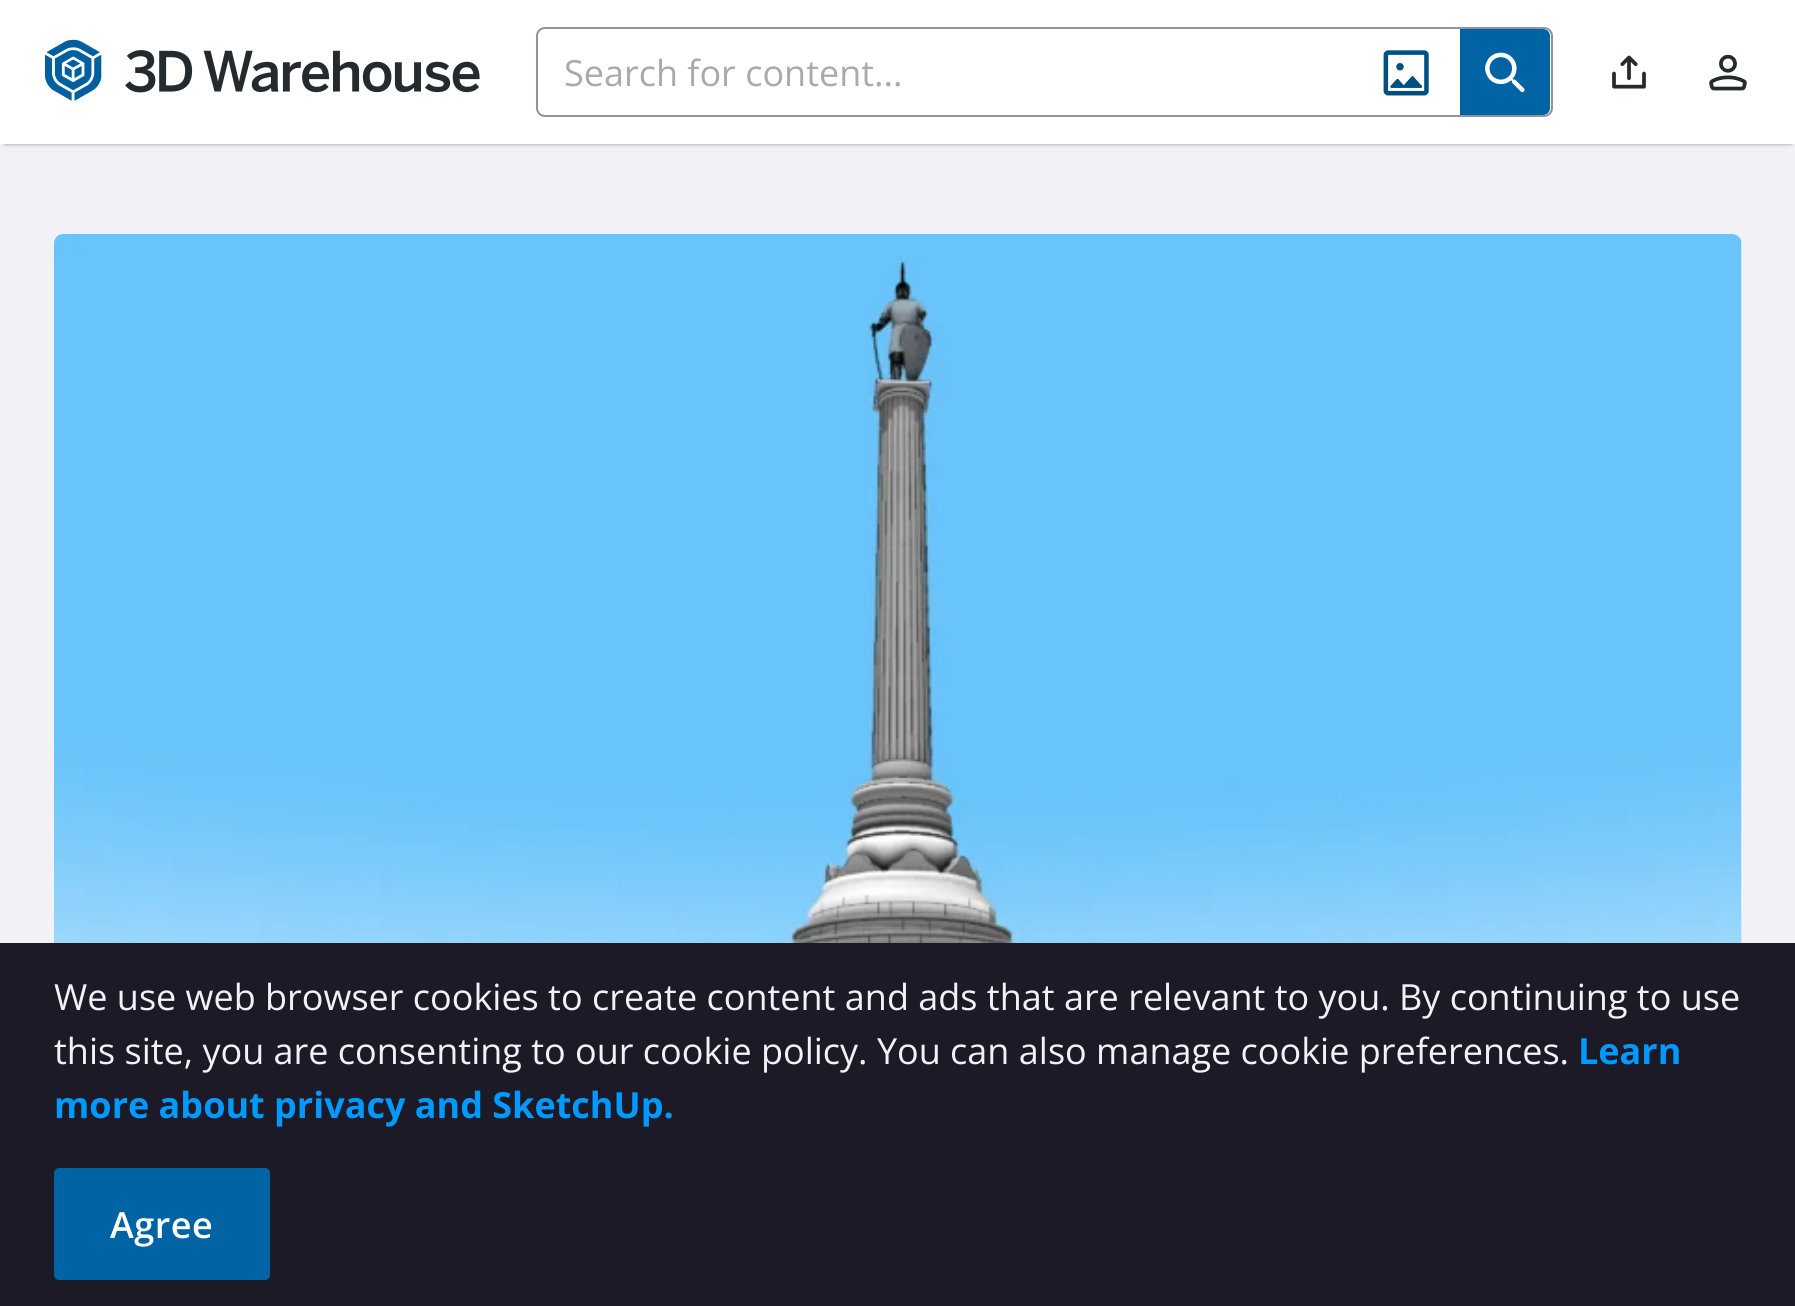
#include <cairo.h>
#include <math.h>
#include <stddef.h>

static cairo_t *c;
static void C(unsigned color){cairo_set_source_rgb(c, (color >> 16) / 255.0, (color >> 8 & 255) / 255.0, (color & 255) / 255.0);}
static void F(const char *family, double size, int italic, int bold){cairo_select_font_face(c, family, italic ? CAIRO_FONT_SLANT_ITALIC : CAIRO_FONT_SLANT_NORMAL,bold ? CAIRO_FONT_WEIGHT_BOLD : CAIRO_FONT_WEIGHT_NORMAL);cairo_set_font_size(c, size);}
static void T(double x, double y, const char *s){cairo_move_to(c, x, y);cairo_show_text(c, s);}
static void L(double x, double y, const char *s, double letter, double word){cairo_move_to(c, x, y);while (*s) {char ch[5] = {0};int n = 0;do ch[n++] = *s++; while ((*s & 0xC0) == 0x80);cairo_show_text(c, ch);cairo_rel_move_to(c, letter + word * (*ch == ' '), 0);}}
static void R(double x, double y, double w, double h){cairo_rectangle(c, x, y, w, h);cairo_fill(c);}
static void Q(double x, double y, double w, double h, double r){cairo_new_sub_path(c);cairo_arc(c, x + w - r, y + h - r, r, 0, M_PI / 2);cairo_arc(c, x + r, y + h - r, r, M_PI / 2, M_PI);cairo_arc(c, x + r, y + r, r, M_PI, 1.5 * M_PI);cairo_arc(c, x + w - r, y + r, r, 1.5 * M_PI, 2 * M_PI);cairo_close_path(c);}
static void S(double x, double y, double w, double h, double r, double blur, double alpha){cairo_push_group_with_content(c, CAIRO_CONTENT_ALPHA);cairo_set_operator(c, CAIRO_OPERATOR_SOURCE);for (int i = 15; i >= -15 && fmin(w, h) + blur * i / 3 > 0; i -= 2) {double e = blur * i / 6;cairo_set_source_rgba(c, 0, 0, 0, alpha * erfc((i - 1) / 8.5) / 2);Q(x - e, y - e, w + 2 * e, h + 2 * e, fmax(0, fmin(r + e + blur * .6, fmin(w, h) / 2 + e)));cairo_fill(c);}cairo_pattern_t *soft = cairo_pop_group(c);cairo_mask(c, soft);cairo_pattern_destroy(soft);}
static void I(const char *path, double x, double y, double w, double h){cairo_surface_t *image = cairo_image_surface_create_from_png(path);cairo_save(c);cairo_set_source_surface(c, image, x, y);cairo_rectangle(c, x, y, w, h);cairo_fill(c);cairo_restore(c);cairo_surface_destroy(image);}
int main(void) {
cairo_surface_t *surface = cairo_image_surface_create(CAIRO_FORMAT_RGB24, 1795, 1306);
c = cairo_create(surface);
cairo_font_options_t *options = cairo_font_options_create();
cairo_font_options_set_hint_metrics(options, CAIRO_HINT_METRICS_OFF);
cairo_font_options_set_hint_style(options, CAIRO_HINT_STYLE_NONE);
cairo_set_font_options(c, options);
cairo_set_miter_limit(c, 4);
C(0xf1f1f6);
cairo_paint(c);
C(0x90939f);
S(5,9,1786,135,0,2,1);
C(0xffffff);
R(0,0,1795,144);
I("1.png",45,39,57,62);
I("2.png",125,50,355,43);
Q(537,28,1015,88,8);
C(0x90939f);
cairo_stroke(c);
F("Open Sans",36,0,0);
C(0xa8aaab);
T(564,86,"Search for content...");
I("3.png",1383,50,46,46);
C(0x0063a3);
cairo_new_path(c);
cairo_move_to(c,1460,29);
cairo_line_to(c,1543,29);
cairo_curve_to(c,1547,29,1550,32,1550,36);
cairo_line_to(c,1550,108);
cairo_curve_to(c,1550,112,1547,115,1543,115);
cairo_line_to(c,1460,115);
cairo_close_path(c);
cairo_fill(c);
I("4.png",1485,52,40,41);
I("5.png",1612,55,34,34);
I("6.png",1709,54,38,37);
I("7.png",54,234,1688,709);
C(0x1b1a26);
R(0,943,1795,363);
C(0xf1f1f6);
T(54,1010,"We use web browser cookies to create content and ads that are relevant to you. By continuing to use");
T(54,1064,"this site, you are consenting to our cookie policy. You can also manage cookie preferences.");
F("Open Sans",36,0,1);
C(0x0099fe);
T(1578,1064,"Learn");
T(54,1118,"more about privacy and SketchUp.");
C(0x0063a3);
Q(55,1169,214,110,4);
cairo_fill_preserve(c);
cairo_stroke(c);
F("Open Sans SemiBold",36,0,0);
C(0xffffff);
L(110,1238,"Agree",.5,0);
cairo_surface_write_to_png(surface, "o.png");
cairo_font_options_destroy(options);
cairo_destroy(c);
cairo_surface_destroy(surface);
return 0;
}
